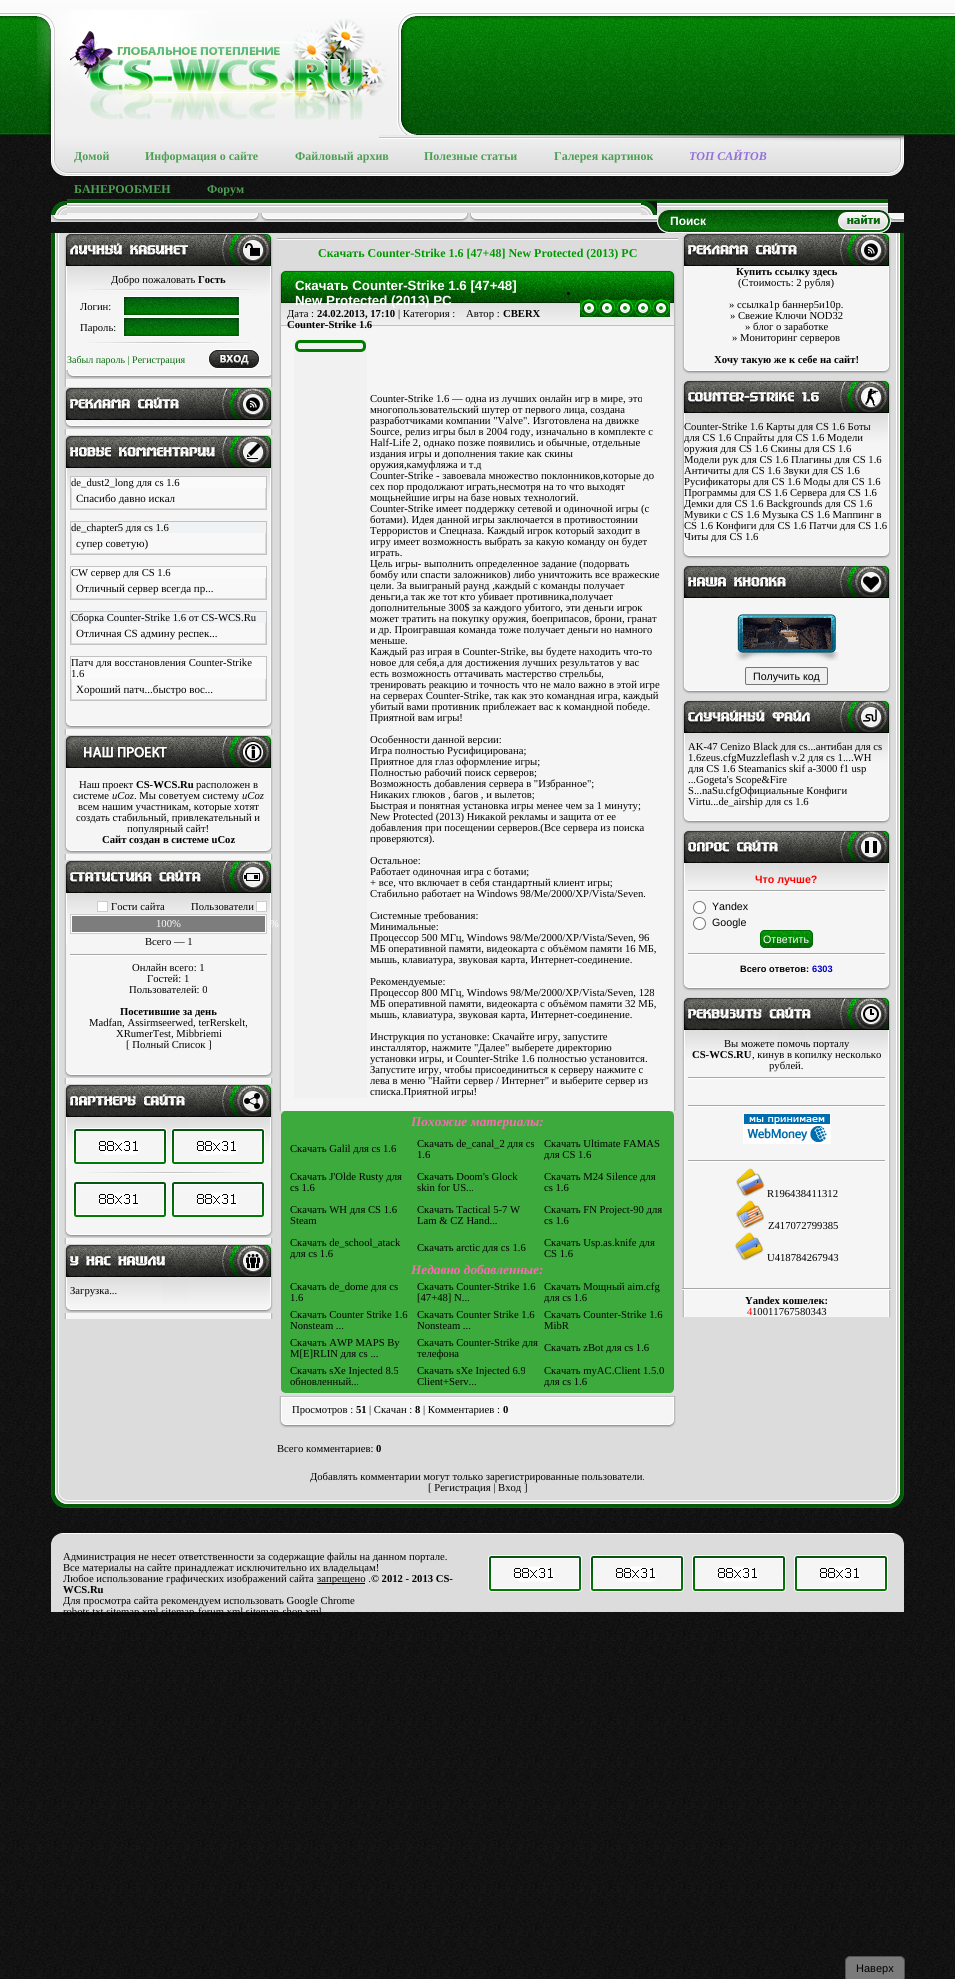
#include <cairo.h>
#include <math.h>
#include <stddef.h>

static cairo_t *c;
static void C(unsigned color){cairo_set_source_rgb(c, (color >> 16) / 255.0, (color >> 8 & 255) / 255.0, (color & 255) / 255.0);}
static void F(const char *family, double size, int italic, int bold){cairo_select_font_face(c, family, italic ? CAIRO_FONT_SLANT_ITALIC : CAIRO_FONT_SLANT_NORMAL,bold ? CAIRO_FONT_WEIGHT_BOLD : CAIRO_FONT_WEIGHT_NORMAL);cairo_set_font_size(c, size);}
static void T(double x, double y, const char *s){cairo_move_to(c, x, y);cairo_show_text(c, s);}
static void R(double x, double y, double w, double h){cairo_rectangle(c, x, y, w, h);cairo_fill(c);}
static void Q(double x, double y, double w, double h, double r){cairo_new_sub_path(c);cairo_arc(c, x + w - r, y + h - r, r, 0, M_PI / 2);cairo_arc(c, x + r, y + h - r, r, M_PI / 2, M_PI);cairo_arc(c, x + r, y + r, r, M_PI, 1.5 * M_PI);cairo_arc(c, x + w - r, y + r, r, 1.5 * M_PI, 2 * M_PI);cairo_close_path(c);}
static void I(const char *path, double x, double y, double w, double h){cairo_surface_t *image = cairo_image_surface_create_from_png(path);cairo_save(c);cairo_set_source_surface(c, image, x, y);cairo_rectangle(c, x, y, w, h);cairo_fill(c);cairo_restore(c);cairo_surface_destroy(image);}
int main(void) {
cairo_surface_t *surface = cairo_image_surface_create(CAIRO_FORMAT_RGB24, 955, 1979);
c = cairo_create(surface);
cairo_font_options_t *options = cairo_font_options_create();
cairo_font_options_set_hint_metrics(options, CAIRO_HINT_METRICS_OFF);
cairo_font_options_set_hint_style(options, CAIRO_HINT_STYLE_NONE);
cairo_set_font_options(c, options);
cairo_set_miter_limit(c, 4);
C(0xffffff);
cairo_paint(c);
I("1.png",0,135,955,1844);
I("2.png",0,0,955,135);
I("3.png",37,10,381,125);
I("4.png",51,135,328,41);
I("5.png",379,135,525,41);
F("Liberation Serif",12,0,1);
C(0x4d9f53);
T(74,160,"Домой");
T(145,160,"Информация о сайте");
T(295,160,"Файловый архив");
T(424,160,"Полезные статьи");
T(554,160,"Галерея картинок");
F("Liberation Serif",12,1,1);
C(0x9370db);
T(689,160,"ТОП САЙТОВ");
F("Liberation Serif",12,0,1);
C(0x4d9f53);
T(74,193,"БАНЕРООБМЕН");
T(207,193,"Форум");
I("9.png",67,199,821,14);
I("11.png",51,213,853,9);
I("6.png",657,210,179,23);
F("Liberation Sans",12,0,1);
C(0xffffff);
T(670,225,"Поиск");
I("7.png",836,210,55,23);
I("8.png",51,201,16,14);
I("10.png",641,201,16,14);
C(0xdcdcdc);
R(59,233,837,1260);
I("12.png",51,233,8,1260);
I("13.png",64,233,209,33);
I("14.png",64,266,209,1053);
I("15.png",66,266,205,50);
F("Liberation Serif",10.65,0,0);
C(0x000000);
T(111,283,"Добро пожаловать");
F("Liberation Serif",10.65,0,1);
T(198,283,"Гость");
I("16.png",90,289,160,2);
F("Liberation Serif",10.65,0,0);
T(80,310,"Логин:");
I("17.png",123,296,117,20);
T(80,331,"Пароль:");
I("17.png",123,317,117,20);
I("18.png",89,342,161,2);
F("Liberation Serif",10,0,0);
C(0x07690a);
T(67,363,"Забыл пароль | Регистрация");
I("19.png",208,349,52,20);
I("20.png",66,370,205,9);
I("21.png",64,387,209,33);
I("22.png",64,422,209,7);
I("23.png",64,435,209,33);
I("15.png",66,468,205,50);
C(0xfafafa);
R(71,477,195,11);
cairo_rectangle(c,70.5,476.5,196,33);
C(0xc2c2c2);
cairo_set_line_width(c,1);
cairo_stroke(c);
C(0xf8f8f8);
R(72,488,193,20);
C(0xdbdbdb);
R(265,488,1,21);
R(71,508,195,1);
R(71,488,1,21);
F("Liberation Serif",10.65,0,0);
C(0x000000);
T(71,486,"de_dust2_long для cs 1.6");
F("Liberation Serif",11,0,0);
T(76,502,"Спасибо давно искал");
C(0xf1f2f3);
R(71,522,195,11);
cairo_rectangle(c,70.5,521.5,196,33);
C(0xc2c2c2);
cairo_stroke(c);
C(0xf8f8f8);
R(72,533,193,20);
C(0xdbdbdb);
R(265,533,1,21);
R(71,553,195,1);
R(71,533,1,21);
F("Liberation Serif",10.65,0,0);
C(0x000000);
T(71,531,"de_chapter5 для cs 1.6");
F("Liberation Serif",11,0,0);
T(76,547,"супер советую)");
C(0xfafafa);
R(71,567,195,11);
cairo_rectangle(c,70.5,566.5,196,33);
C(0xc2c2c2);
cairo_stroke(c);
C(0xf8f8f8);
R(72,578,193,20);
C(0xdbdbdb);
R(265,578,1,21);
R(71,598,195,1);
R(71,578,1,21);
F("Liberation Serif",10.65,0,0);
C(0x000000);
T(71,576,"CW сервер для CS 1.6");
F("Liberation Serif",11,0,0);
T(76,592,"Отличный сервер всегда пр...");
C(0xf1f2f3);
R(71,612,195,11);
cairo_rectangle(c,70.5,611.5,196,33);
C(0xc2c2c2);
cairo_stroke(c);
C(0xf8f8f8);
R(72,623,193,20);
C(0xdbdbdb);
R(265,623,1,21);
R(71,643,195,1);
R(71,623,1,21);
F("Liberation Serif",10.65,0,0);
C(0x000000);
T(71,621,"Сборка Counter-Strike 1.6 от CS-WCS.Ru");
F("Liberation Serif",11,0,0);
T(76,637,"Отличная CS админу респек...");
C(0xfafafa);
R(71,657,195,22);
cairo_rectangle(c,70.5,656.5,196,44);
C(0xc2c2c2);
cairo_stroke(c);
F("Liberation Serif",10.65,0,0);
C(0x000000);
T(71,666,"Патч для восстановления Counter-Strike");
T(71,677,"1.6");
C(0xf8f8f8);
R(72,679,193,20);
C(0xdbdbdb);
R(265,679,1,21);
R(71,699,195,1);
R(71,679,1,21);
F("Liberation Serif",11,0,0);
C(0x000000);
T(76,693,"Хороший патч...быстро вос...");
I("22.png",64,722,209,7);
I("24.png",64,735,209,33);
F("Liberation Serif",10.65,0,0);
T(79,788,"Наш проект");
F("Liberation Serif",10.65,0,1);
T(136,788,"CS-WCS.Ru");
F("Liberation Serif",10.65,0,0);
T(196,788,"расположен в");
T(73,799,"системе");
F("Liberation Serif",10.65,1,0);
T(112,799,"uCoz");
F("Liberation Serif",10.65,0,0);
T(134,799,". Мы советуем систему");
F("Liberation Serif",10.65,1,0);
T(242,799,"uCoz");
F("Liberation Serif",10.65,0,0);
T(78,810,"всем нашим участникам, которые хотят");
T(76,821,"создать стабильный, привлекательный и");
T(127,832,"популярный сайт!");
F("Liberation Serif",10.65,0,1);
T(102,843,"Сайт создан в системе uCoz");
I("25.png",64,845,209,9);
I("26.png",64,860,209,33);
C(0xf5f5f5);
R(66,944,205,125);
I("27.png",66,893,205,51);
C(0xffffff);
cairo_rectangle(c,97.5,901.5,10,10);
cairo_fill_preserve(c);
C(0xcccccc);
cairo_stroke(c);
F("Liberation Serif",10.65,0,0);
C(0x000000);
T(111,910,"Гости сайта");
T(191,910,"Пользователи");
C(0xffffff);
cairo_rectangle(c,256.5,901.5,10,10);
cairo_fill_preserve(c);
C(0xcccccc);
cairo_stroke(c);
C(0xffffff);
cairo_rectangle(c,70.5,914.5,196,19);
cairo_fill_preserve(c);
C(0xcccccc);
cairo_stroke(c);
C(0x7d7d7d);
R(72,916,193,16);
C(0xffffff);
T(156,927,"100%");
T(270,927,"%");
C(0x000000);
T(145,945,"Всего — 1");
C(0xa7a7a7);
R(70,954,197,1);
C(0xffffff);
R(70,955,197,1);
C(0x000000);
T(132,971,"Онлайн всего: 1");
T(147,982,"Гостей: 1");
T(129,993,"Пользователей: 0");
F("Liberation Serif",10.65,0,1);
T(120,1015,"Посетившие за день");
F("Liberation Serif",10.65,0,0);
T(89,1026,"Madfan, Assirmseerwed, terRerskelt,");
T(116,1037,"XRumerTest, Mibbriemi");
T(126,1048,"[ Полный Список ]");
I("25.png",64,1069,209,9);
I("28.png",64,1084,209,33);
C(0xf5f5f5);
R(66,1168,205,61);
I("27.png",66,1117,205,51);
I("29.png",73,1128,94,37);
I("30.png",171,1128,94,37);
I("18.png",89,1172,161,2);
I("31.png",73,1181,94,37);
I("31.png",171,1181,94,37);
I("25.png",64,1229,209,9);
I("32.png",64,1244,209,33);
I("33.png",66,1277,205,27);
C(0x000000);
T(70,1294,"Загрузка...");
I("22.png",64,1306,209,7);
C(0xa7a7a7);
R(277,238,401,1);
C(0xffffff);
R(277,239,401,1);
F("Liberation Serif",12,0,1);
C(0x009900);
T(318,257,"Скачать Counter-Strike 1.6 [47+48] New Protected (2013) PC");
I("34.png",279,270,6,33);
I("35.png",285,270,385,33);
F("Liberation Sans",13.3,0,1);
C(0xffffff);
T(295,290,"Скачать Counter-Strike 1.6 [47+48]");
I("39.png",281,304,393,22);
T(295,305,"New Protected (2013) PC");
C(0x000000);
cairo_new_path(c);
cairo_arc(c,568.5,293.5,1.5,0,2 * M_PI);
cairo_fill(c);
I("36.png",587,299,76,1);
I("37.png",580,299,90,18);
I("38.png",670,270,6,33);
C(0xd1d1d1);
R(675,303,1,808);
R(279,303,1,808);
C(0xbbbbbb);
R(674,303,1,808);
R(280,303,1,808);
F("Liberation Serif",10.65,0,0);
C(0x000000);
T(287,317,"Дата :");
F("Liberation Serif",10.65,0,1);
T(317,317,"24.02.2013, 17:10");
F("Liberation Serif",10.65,0,0);
T(398,317,"| Категория :");
T(466,317,"Автор :");
F("Liberation Serif",10.65,0,1);
T(503,317,"CBERX");
C(0xf5f5f5);
R(281,326,393,785);
C(0x000000);
T(287,328,"Counter-Strike 1.6");
C(0xf1f1f1);
R(294,339,73,759);
Q(296.5,341.5,68,9,3.5);
C(0x007b00);
cairo_set_line_width(c,3);
cairo_stroke(c);
F("Liberation Serif",10.65,0,0);
C(0x000000);
T(370,402,"Counter-Strike 1.6 — одна из лучших онлайн игр в мире, это");
T(370,413,"многопользовательский шутер от первого лица, создана");
T(370,424,"разработчиками компании \"Valve\". Изготовлена на движке");
T(370,435,"Source, релиз игры был в 2004 году, изначально в комплекте с");
T(370,446,"Half-Life 2, однако позже появились и обычные, отдельные");
T(370,457,"издания игры и дополнения такие как скины");
T(370,468,"оружия,камуфляжа и т.д");
T(370,479,"Counter-Strike - завоевала множество поклонников,которые до");
T(370,490,"сех пор продолжают играть,несмотря на то что выходят");
T(370,501,"мощьнейшие игры на базе новых технологий.");
T(370,512,"Counter-Strike имеет поддержку сетевой и одиночной игры (с");
T(370,523,"ботами). Идея данной игры заключается в противостоянии");
T(370,534,"Террористов и Спецназа. Каждый игрок который заходит в");
T(370,545,"игру имеет возможность выбрать за какую команду он будет");
T(370,556,"играть.");
T(370,567,"Цель игры- выполнить определенное задание (подорвать");
T(370,578,"бомбу или спасти заложников) либо уничтожить все вражеские");
T(370,589,"цели. За выиграный раунд ,каждый с команды получает");
T(370,600,"деньги,а так же тот кто убивает противника,получает");
T(370,611,"дополнительные 300$ за каждого убитого, эти деньги игрок");
T(370,622,"может тратить на покупку оружия, боеприпасов, брони, гранат");
T(370,633,"и др. Проигравшая команда тоже получает деньги но намного");
T(370,644,"меньше.");
T(370,655,"Каждый раз играя в Counter-Strike, вы будете находить что-то");
T(370,666,"новое для себя,а для достижения лучших результатов у вас");
T(370,677,"есть возможность оттачивать мастерство стрельбы,");
T(370,688,"тренировать реакцию и точность что не мало важно в этой игре");
T(370,699,"на серверах Counter-Strike, так как это командная игра, каждый");
T(370,710,"убитый вами противник приблежает вас к командной победе.");
T(370,721,"Приятной вам игры!");
T(370,743,"Особенности данной версии:");
T(370,754,"Игра полностью Русифицирована;");
T(370,765,"Приятное для глаз оформление игры;");
T(370,776,"Полностью рабочий поиск серверов;");
T(370,787,"Возможность добавления сервера в \"Избранное\";");
T(370,798,"Никаких глюков , багов , и вылетов;");
T(370,809,"Быстрая и понятная установка игры менее чем за 1 минуту;");
T(370,820,"New Protected (2013) Никакой рекламы и защита от ее");
T(370,831,"добавления при посещении серверов.(Все сервера из поиска");
T(370,842,"проверяются).");
T(370,864,"Остальное:");
T(370,875,"Работает одиночная игра с ботами;");
T(370,886,"+ все, что включает в себя стандартный клиент игры;");
T(370,897,"Стабильно работает на Windows 98/Me/2000/XP/Vista/Seven.");
T(370,919,"Системные требования:");
T(370,930,"Минимальные:");
T(370,941,"Процессор 500 МГц, Windows 98/Me/2000/XP/Vista/Seven, 96");
T(370,952,"МБ оперативной памяти, видеокарта с объёмом памяти 16 МБ,");
T(370,963,"мышь, клавиатура, звуковая карта, Интернет-соединение.");
T(370,985,"Рекомендуемые:");
T(370,996,"Процессор 800 МГц, Windows 98/Me/2000/XP/Vista/Seven, 128");
T(370,1007,"МБ оперативной памяти, видеокарта с объёмом памяти 32 МБ,");
T(370,1018,"мышь, клавиатура, звуковая карта, Интернет-соединение.");
T(370,1040,"Инструкция по установке: Скачайте игру, запустите");
T(370,1051,"инсталлятор, нажмите \"Далее\" выберете директорию");
T(370,1062,"установки игры, и Counter-Strike 1.6 полностью установится.");
T(370,1073,"Запустите игру, чтобы присоединиться к серверу нажмите с");
T(370,1084,"лева в меню \"Найти сервер / Интернет\" и выберите сервер из");
T(370,1095,"списка.Приятной игры!");
C(0x3caa3c);
Q(281,1111,393,282,5);
cairo_fill(c);
cairo_new_path(c);
cairo_move_to(c,286,1111.5);
cairo_line_to(c,669,1111.5);
cairo_curve_to(c,671.5,1111.5,673.5,1113.5,673.5,1116);
cairo_line_to(c,673.5,1388);
cairo_curve_to(c,673.5,1390.5,671.5,1392.5,669,1392.5);
cairo_line_to(c,286,1392.5);
cairo_curve_to(c,283.5,1392.5,281.5,1390.5,281.5,1388);
cairo_line_to(c,281.5,1116);
cairo_curve_to(c,281.5,1113.5,283.5,1111.5,286,1111.5);
cairo_close_path(c);
cairo_set_line_width(c,1);
cairo_set_dash(c,(double[]){3,2},2,0);
cairo_stroke(c);
F("Liberation Serif",13.3,1,1);
C(0xff69b4);
T(411,1126,"Похожие материалы:");
F("Liberation Serif",10.65,0,0);
C(0x000000);
T(290,1152,"Скачать Galil для cs 1.6");
T(417,1147,"Скачать de_canal_2 для cs");
T(417,1158,"1.6");
T(544,1147,"Скачать Ultimate FAMAS");
T(544,1158,"для CS 1.6");
T(290,1180,"Скачать J'Olde Rusty для");
T(290,1191,"cs 1.6");
T(417,1180,"Скачать Doom's Glock");
T(417,1191,"skin for US...");
T(544,1180,"Скачать M24 Silence для");
T(544,1191,"cs 1.6");
T(290,1213,"Скачать WH для CS 1.6");
T(290,1224,"Steam");
T(417,1213,"Скачать Tactical 5-7 W");
T(417,1224,"Lam & CZ Hand...");
T(544,1213,"Скачать FN Project-90 для");
T(544,1224,"cs 1.6");
T(290,1246,"Скачать de_school_atack");
T(290,1257,"для cs 1.6");
T(417,1251,"Скачать arctic для cs 1.6");
T(544,1246,"Скачать Usp.as.knife для");
T(544,1257,"CS 1.6");
F("Liberation Serif",13.3,1,1);
C(0xff69b4);
T(411,1274,"Недавно добавленные:");
F("Liberation Serif",10.65,0,0);
C(0x000000);
T(290,1290,"Скачать de_dome для cs");
T(290,1301,"1.6");
T(417,1290,"Скачать Counter-Strike 1.6");
T(417,1301,"[47+48] N...");
T(544,1290,"Скачать Мощный aim.cfg");
T(544,1301,"для cs 1.6");
T(290,1318,"Скачать Counter Strike 1.6");
T(290,1329,"Nonsteam ...");
T(417,1318,"Скачать Counter Strike 1.6");
T(417,1329,"Nonsteam ...");
T(544,1318,"Скачать Counter-Strike 1.6");
T(544,1329,"MibR");
T(290,1346,"Скачать AWP MAPS By");
T(290,1357,"M[E]RLIN для cs ...");
T(417,1346,"Скачать Counter-Strike для");
T(417,1357,"телефона");
T(544,1351,"Скачать zBot для cs 1.6");
T(290,1374,"Скачать sXe Injected 8.5");
T(290,1385,"обновленный...");
T(417,1374,"Скачать sXe Injected 6.9");
T(417,1385,"Client+Serv...");
T(544,1374,"Скачать myAC.Client 1.5.0");
T(544,1385,"для cs 1.6");
I("40.png",279,1396,6,32);
I("41.png",285,1396,385,32);
T(292,1413,"Просмотров :");
F("Liberation Serif",10.65,0,1);
T(356,1413,"51");
F("Liberation Serif",10.65,0,0);
T(369,1413,"| Скачан :");
F("Liberation Serif",10.65,0,1);
T(415,1413,"8");
F("Liberation Serif",10.65,0,0);
T(423,1413,"| Комментариев :");
F("Liberation Serif",10.65,0,1);
T(503,1413,"0");
I("42.png",670,1396,6,32);
F("Liberation Serif",10.65,0,0);
T(277,1452,"Всего комментариев:");
F("Liberation Serif",10.65,0,1);
T(376,1452,"0");
F("Liberation Serif",10.65,0,0);
T(310,1480,"Добавлять комментарии могут только зарегистрированные пользователи.");
I("63.png",67,1493,821,15);
T(428,1491,"[ Регистрация | Вход ]");
I("21.png",682,233,209,33);
I("43.png",682,266,209,99);
F("Liberation Serif",10.65,0,1);
T(736,275,"Купить ссылку здесь");
F("Liberation Serif",10.65,0,0);
T(738,286,"(Стоимость: 2 рубля)");
T(729,308,"» ссылка1р баннер5и10р.");
T(730,319,"» Свежие Ключи NOD32");
T(745,330,"» блог о заработке");
T(732,341,"» Мониторинг серверов");
I("25.png",682,365,209,9);
F("Liberation Serif",10.65,0,1);
T(714,363,"Хочу такую же к себе на сайт!");
I("44.png",682,380,209,33);
I("45.png",682,413,209,137);
I("15.png",684,413,205,50);
F("Liberation Serif",10.65,0,0);
T(684,430,"Counter-Strike 1.6 Карты для CS 1.6 Боты");
T(684,441,"для CS 1.6 Спрайты для CS 1.6 Модели");
T(684,452,"оружия для CS 1.6 Скины для CS 1.6");
T(684,463,"Модели рук для CS 1.6 Плагины для CS 1.6");
T(684,474,"Античиты для CS 1.6 Звуки для CS 1.6");
T(684,485,"Русификаторы для CS 1.6 Моды для CS 1.6");
T(684,496,"Программы для CS 1.6 Сервера для CS 1.6");
T(684,507,"Демки для CS 1.6 Backgrounds для CS 1.6");
T(684,518,"Мувики с CS 1.6 Музыка CS 1.6 Маппинг в");
T(684,529,"CS 1.6 Конфиги для CS 1.6 Патчи для CS 1.6");
T(684,540,"Читы для CS 1.6");
I("25.png",682,550,209,9);
I("46.png",682,565,209,33);
I("47.png",682,598,209,87);
I("48.png",735,614,104,47);
I("49.png",743,618,88,31);
C(0xefefef);
Q(745.5,667.5,82,17,1.5);
cairo_fill_preserve(c);
C(0x767676);
cairo_set_dash(c,NULL,0,0);
cairo_stroke(c);
F("Liberation Sans",10.65,0,0);
C(0x000000);
T(753,680,"Получить код");
I("25.png",682,685,209,9);
I("50.png",682,700,209,33);
I("51.png",682,733,209,82);
I("15.png",684,733,205,50);
F("Liberation Serif",10.65,0,0);
T(688,750,"AK-47 Cenizo Black для cs...антибан для cs");
T(688,761,"1.6zeus.cfgMuzzleflash v.2 для cs 1....WH");
T(688,772,"для CS 1.6 Steamanics skif a-3000 f1 usp");
T(688,783,"...Gogeta's Scope&Fire");
T(688,794,"S...naSu.cfgОфициальные Конфиги");
T(688,805,"Virtu...de_airship для cs 1.6");
I("25.png",682,815,209,9);
I("52.png",682,830,209,33);
I("53.png",682,863,209,119);
I("15.png",684,863,205,50);
F("Liberation Sans",10.65,0,1);
C(0xff0000);
T(755,883,"Что лучше?");
C(0xa7a7a7);
R(688,890,197,1);
C(0xffffff);
R(688,891,197,1);
cairo_new_path(c);
cairo_arc(c,699.5,907.5,6,0,2 * M_PI);
cairo_fill_preserve(c);
C(0x767676);
cairo_stroke(c);
F("Liberation Sans",10.65,0,0);
C(0x000000);
T(712,910,"Yandex");
C(0xffffff);
cairo_new_path(c);
cairo_arc(c,699.5,923.5,6,0,2 * M_PI);
cairo_fill_preserve(c);
C(0x767676);
cairo_stroke(c);
C(0x000000);
T(712,926,"Google");
I("54.png",760,930,53,18);
Q(760.5,930.5,52,17,4.5);
C(0x006b03);
cairo_stroke(c);
C(0xffffff);
T(763,943,"Ответить");
C(0xa7a7a7);
R(688,953,197,1);
C(0xffffff);
R(688,954,197,1);
F("Liberation Sans",9.25,0,1);
C(0x000000);
T(740,972,"Всего ответов:");
C(0x0000cd);
T(812,972,"6303");
I("25.png",682,982,209,9);
I("55.png",682,997,209,33);
I("56.png",682,1030,209,287);
I("15.png",684,1030,205,50);
F("Liberation Serif",10.65,0,0);
C(0x000000);
T(724,1047,"Вы можете помочь порталу");
F("Liberation Serif",10.65,0,1);
T(692,1058,"CS-WCS.RU");
F("Liberation Serif",10.65,0,0);
T(752,1058,", кинув в копилку несколько");
T(769,1069,"рублей.");
C(0xa7a7a7);
R(688,1077,197,1);
C(0xffffff);
R(688,1078,197,1);
C(0xa7a7a7);
R(688,1105,197,1);
C(0xffffff);
R(688,1106,197,1);
I("57.png",743,1113,88,31);
C(0xa7a7a7);
R(688,1160,197,1);
C(0xffffff);
R(688,1161,197,1);
I("58.png",736,1168,29,29);
C(0x000000);
T(767,1197,"R196438411312");
I("59.png",736,1200,29,29);
T(768,1229,"Z417072799385");
I("60.png",735,1232,29,29);
T(767,1261,"U418784267943");
C(0xa7a7a7);
R(682,1288,209,1);
C(0xffffff);
R(682,1289,209,1);
F("Liberation Serif",10.65,0,1);
C(0x000000);
T(745,1304,"Yandex кошелек:");
F("Liberation Serif",10.65,0,0);
C(0xff0000);
T(747,1315,"4");
C(0x000000);
T(752,1315,"10011767580343");
I("61.png",896,233,8,1260);
I("62.png",51,1493,16,15);
I("64.png",888,1493,16,15);
I("65.png",51,1533,853,79);
T(63,1560,"Администрация не несет ответственности за содержащие файлы на данном портале.");
I("66.png",488,1555,94,37);
I("66.png",590,1555,94,37);
I("66.png",692,1555,94,37);
I("66.png",794,1555,94,37);
T(63,1571,"Все материалы на сайте принадлежат исключительно их владельцам!");
T(63,1582,"Любое использование графических изображений сайта");
R(317,1583,48,1);
T(317,1582,"запрещено .");
F("Liberation Serif",10.65,0,1);
T(371,1582,"© 2012 - 2013 CS-");
T(63,1593,"WCS.Ru");
F("Liberation Serif",10.65,0,0);
T(63,1604,"Для просмотра сайта рекомендуем использовать Google Chrome");
T(63,1615,"robots.txt sitemap.xml sitemap-forum.xml sitemap-shop.xml");
C(0x7b7b7b);
Q(845.5,1956.5,59,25,4.5);
cairo_fill_preserve(c);
C(0x525252);
cairo_stroke(c);
F("Liberation Sans",11,0,0);
C(0x000000);
T(856,1972,"Наверх");
cairo_surface_write_to_png(surface, "o.png");
cairo_font_options_destroy(options);
cairo_destroy(c);
cairo_surface_destroy(surface);
return 0;
}
